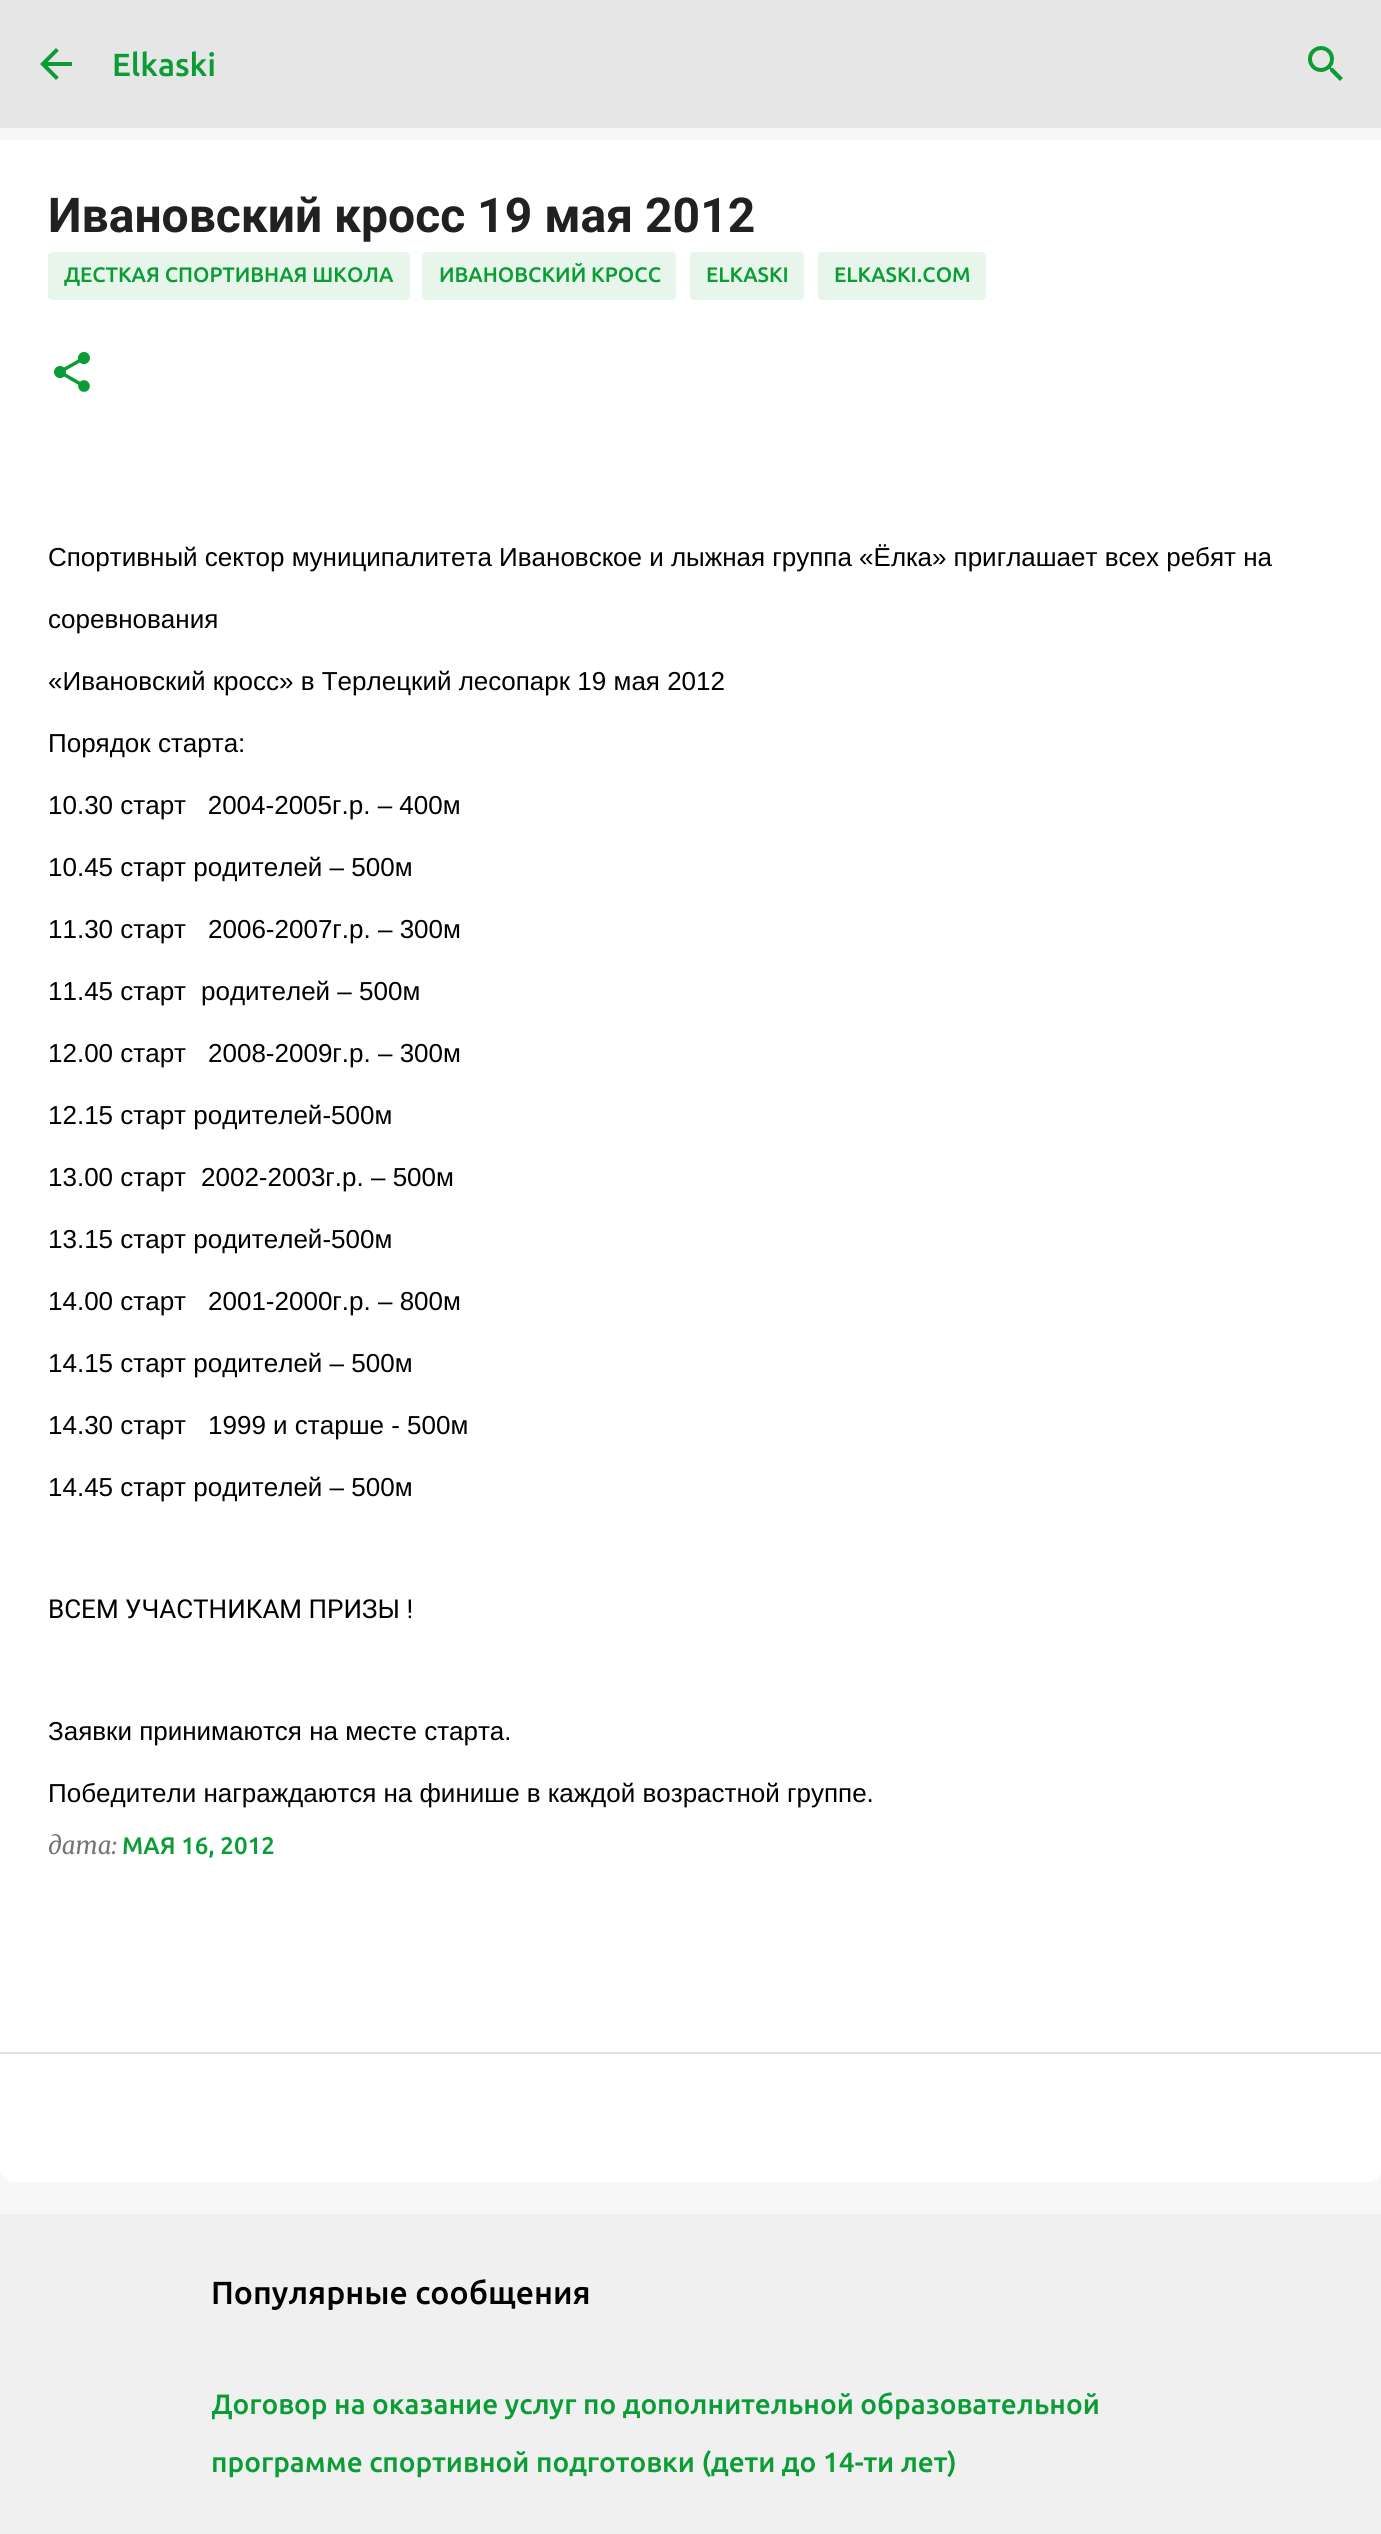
#include <cairo.h>
#include <math.h>
#include <stddef.h>

static cairo_t *c;
static void C(unsigned color){cairo_set_source_rgb(c, (color >> 16) / 255.0, (color >> 8 & 255) / 255.0, (color & 255) / 255.0);}
static void F(const char *family, double size, int italic, int bold){cairo_select_font_face(c, family, italic ? CAIRO_FONT_SLANT_ITALIC : CAIRO_FONT_SLANT_NORMAL,bold ? CAIRO_FONT_WEIGHT_BOLD : CAIRO_FONT_WEIGHT_NORMAL);cairo_set_font_size(c, size);}
static void T(double x, double y, const char *s){cairo_move_to(c, x, y);cairo_show_text(c, s);}
static void R(double x, double y, double w, double h){cairo_rectangle(c, x, y, w, h);cairo_fill(c);}
static void Q(double x, double y, double w, double h, double r){cairo_new_sub_path(c);cairo_arc(c, x + w - r, y + h - r, r, 0, M_PI / 2);cairo_arc(c, x + r, y + h - r, r, M_PI / 2, M_PI);cairo_arc(c, x + r, y + r, r, M_PI, 1.5 * M_PI);cairo_arc(c, x + w - r, y + r, r, 1.5 * M_PI, 2 * M_PI);cairo_close_path(c);}
static void I(const char *path, double x, double y, double w, double h){cairo_surface_t *image = cairo_image_surface_create_from_png(path);cairo_save(c);cairo_set_source_surface(c, image, x, y);cairo_rectangle(c, x, y, w, h);cairo_fill(c);cairo_restore(c);cairo_surface_destroy(image);}
int main(void) {
cairo_surface_t *surface = cairo_image_surface_create(CAIRO_FORMAT_RGB24, 1381, 2534);
c = cairo_create(surface);
cairo_font_options_t *options = cairo_font_options_create();
cairo_font_options_set_hint_metrics(options, CAIRO_HINT_METRICS_OFF);
cairo_font_options_set_hint_style(options, CAIRO_HINT_STYLE_NONE);
cairo_set_font_options(c, options);
cairo_set_miter_limit(c, 4);
C(0xf7f7f7);
cairo_paint(c);
C(0xe6e6e6);
R(0,0,1381,128);
I("1.png",40,48,32,32);
F("Ubuntu Medium",32,0,0);
C(0x0a9c35);
T(112,76,"Elkaski");
I("2.png",1308,46,35,35);
C(0xffffff);
R(0,140,1381,1912);
F("Roboto",48,0,1);
C(0x212121);
T(48,232,"Ивановский кросс 19 мая 2012");
C(0xe7f5eb);
Q(48,252,362,48,4);
cairo_fill(c);
F("Ubuntu Medium",21,0,0);
C(0x0a9c35);
T(64,282,"ДЕСТКАЯ СПОРТИВНАЯ ШКОЛА");
C(0xe7f5eb);
Q(422,252,254,48,4);
cairo_fill(c);
C(0x0a9c35);
T(439,282,"ИВАНОВСКИЙ КРОСС");
C(0xe7f5eb);
Q(690,252,114,48,4);
cairo_fill(c);
C(0x0a9c35);
T(706,282,"ELKASKI");
C(0xe7f5eb);
Q(818,252,168,48,4);
cairo_fill(c);
C(0x0a9c35);
T(834,282,"ELKASKI.COM");
I("3.png",54,352,36,40);
F("Liberation Sans",26,0,0);
C(0x000000);
T(48,566,"Спортивный сектор муниципалитета Ивановское и лыжная группа «Ёлка» приглашает всех ребят на");
T(48,628,"соревнования");
T(48,690,"«Ивановский кросс» в Терлецкий лесопарк 19 мая 2012");
T(48,752,"Порядок старта:");
T(48,814,"10.30 старт   2004-2005г.р. – 400м");
T(48,876,"10.45 старт родителей – 500м");
T(48,938,"11.30 старт");
T(208,938,"2006-2007г.р. – 300м");
T(48,1000,"11.45 старт");
T(201,1000,"родителей – 500м");
T(48,1062,"12.00 старт");
T(208,1062,"2008-2009г.р. – 300м");
T(48,1124,"12.15 старт родителей-500м");
T(48,1186,"13.00 старт");
T(201,1186,"2002-2003г.р. – 500м");
T(48,1248,"13.15 старт родителей-500м");
T(48,1310,"14.00 старт");
T(208,1310,"2001-2000г.р. – 800м");
T(48,1372,"14.15 старт родителей – 500м");
T(48,1434,"14.30 старт");
T(208,1434,"1999 и старше - 500м");
T(48,1496,"14.45 старт родителей – 500м");
F("Roboto",26,0,0);
T(48,1618,"ВСЕМ УЧАСТНИКАМ ПРИЗЫ !");
F("Liberation Sans",26,0,0);
T(48,1740,"Заявки принимаются на месте старта.");
T(48,1802,"Победители награждаются на финише в каждой возрастной группе.");
F("Merriweather",24,1,0);
C(0x757575);
T(48,1854,"дата:");
F("Ubuntu Medium",24,0,0);
C(0x0a9c35);
T(122,1854,"МАЯ 16, 2012");
C(0xffffff);
cairo_new_path(c);
cairo_move_to(c,0,2052);
cairo_line_to(c,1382,2052);
cairo_line_to(c,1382,2168);
cairo_curve_to(c,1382,2175.5,1375.5,2182,1368,2182);
cairo_line_to(c,14,2182);
cairo_curve_to(c,6.5,2182,0,2175.5,0,2168);
cairo_close_path(c);
cairo_fill(c);
C(0xe0e0e0);
R(0,2052,1381,2);
C(0xf0f0f0);
R(0,2214,1381,320);
F("Ubuntu Medium",32,0,0);
C(0x000000);
T(211,2304,"Популярные сообщения");
cairo_save(c);
cairo_rectangle(c,212,2244,960,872);
cairo_clip(c);
F("Ubuntu Medium",28,0,0);
C(0x0a9c35);
T(211,2414,"Договор на оказание услуг по дополнительной образовательной");
cairo_restore(c);
F("Ubuntu Medium",28,0,0);
C(0x0a9c35);
T(211,2472,"программе спортивной подготовки (дети до 14-ти лет)");
cairo_surface_write_to_png(surface, "o.png");
cairo_font_options_destroy(options);
cairo_destroy(c);
cairo_surface_destroy(surface);
return 0;
}
